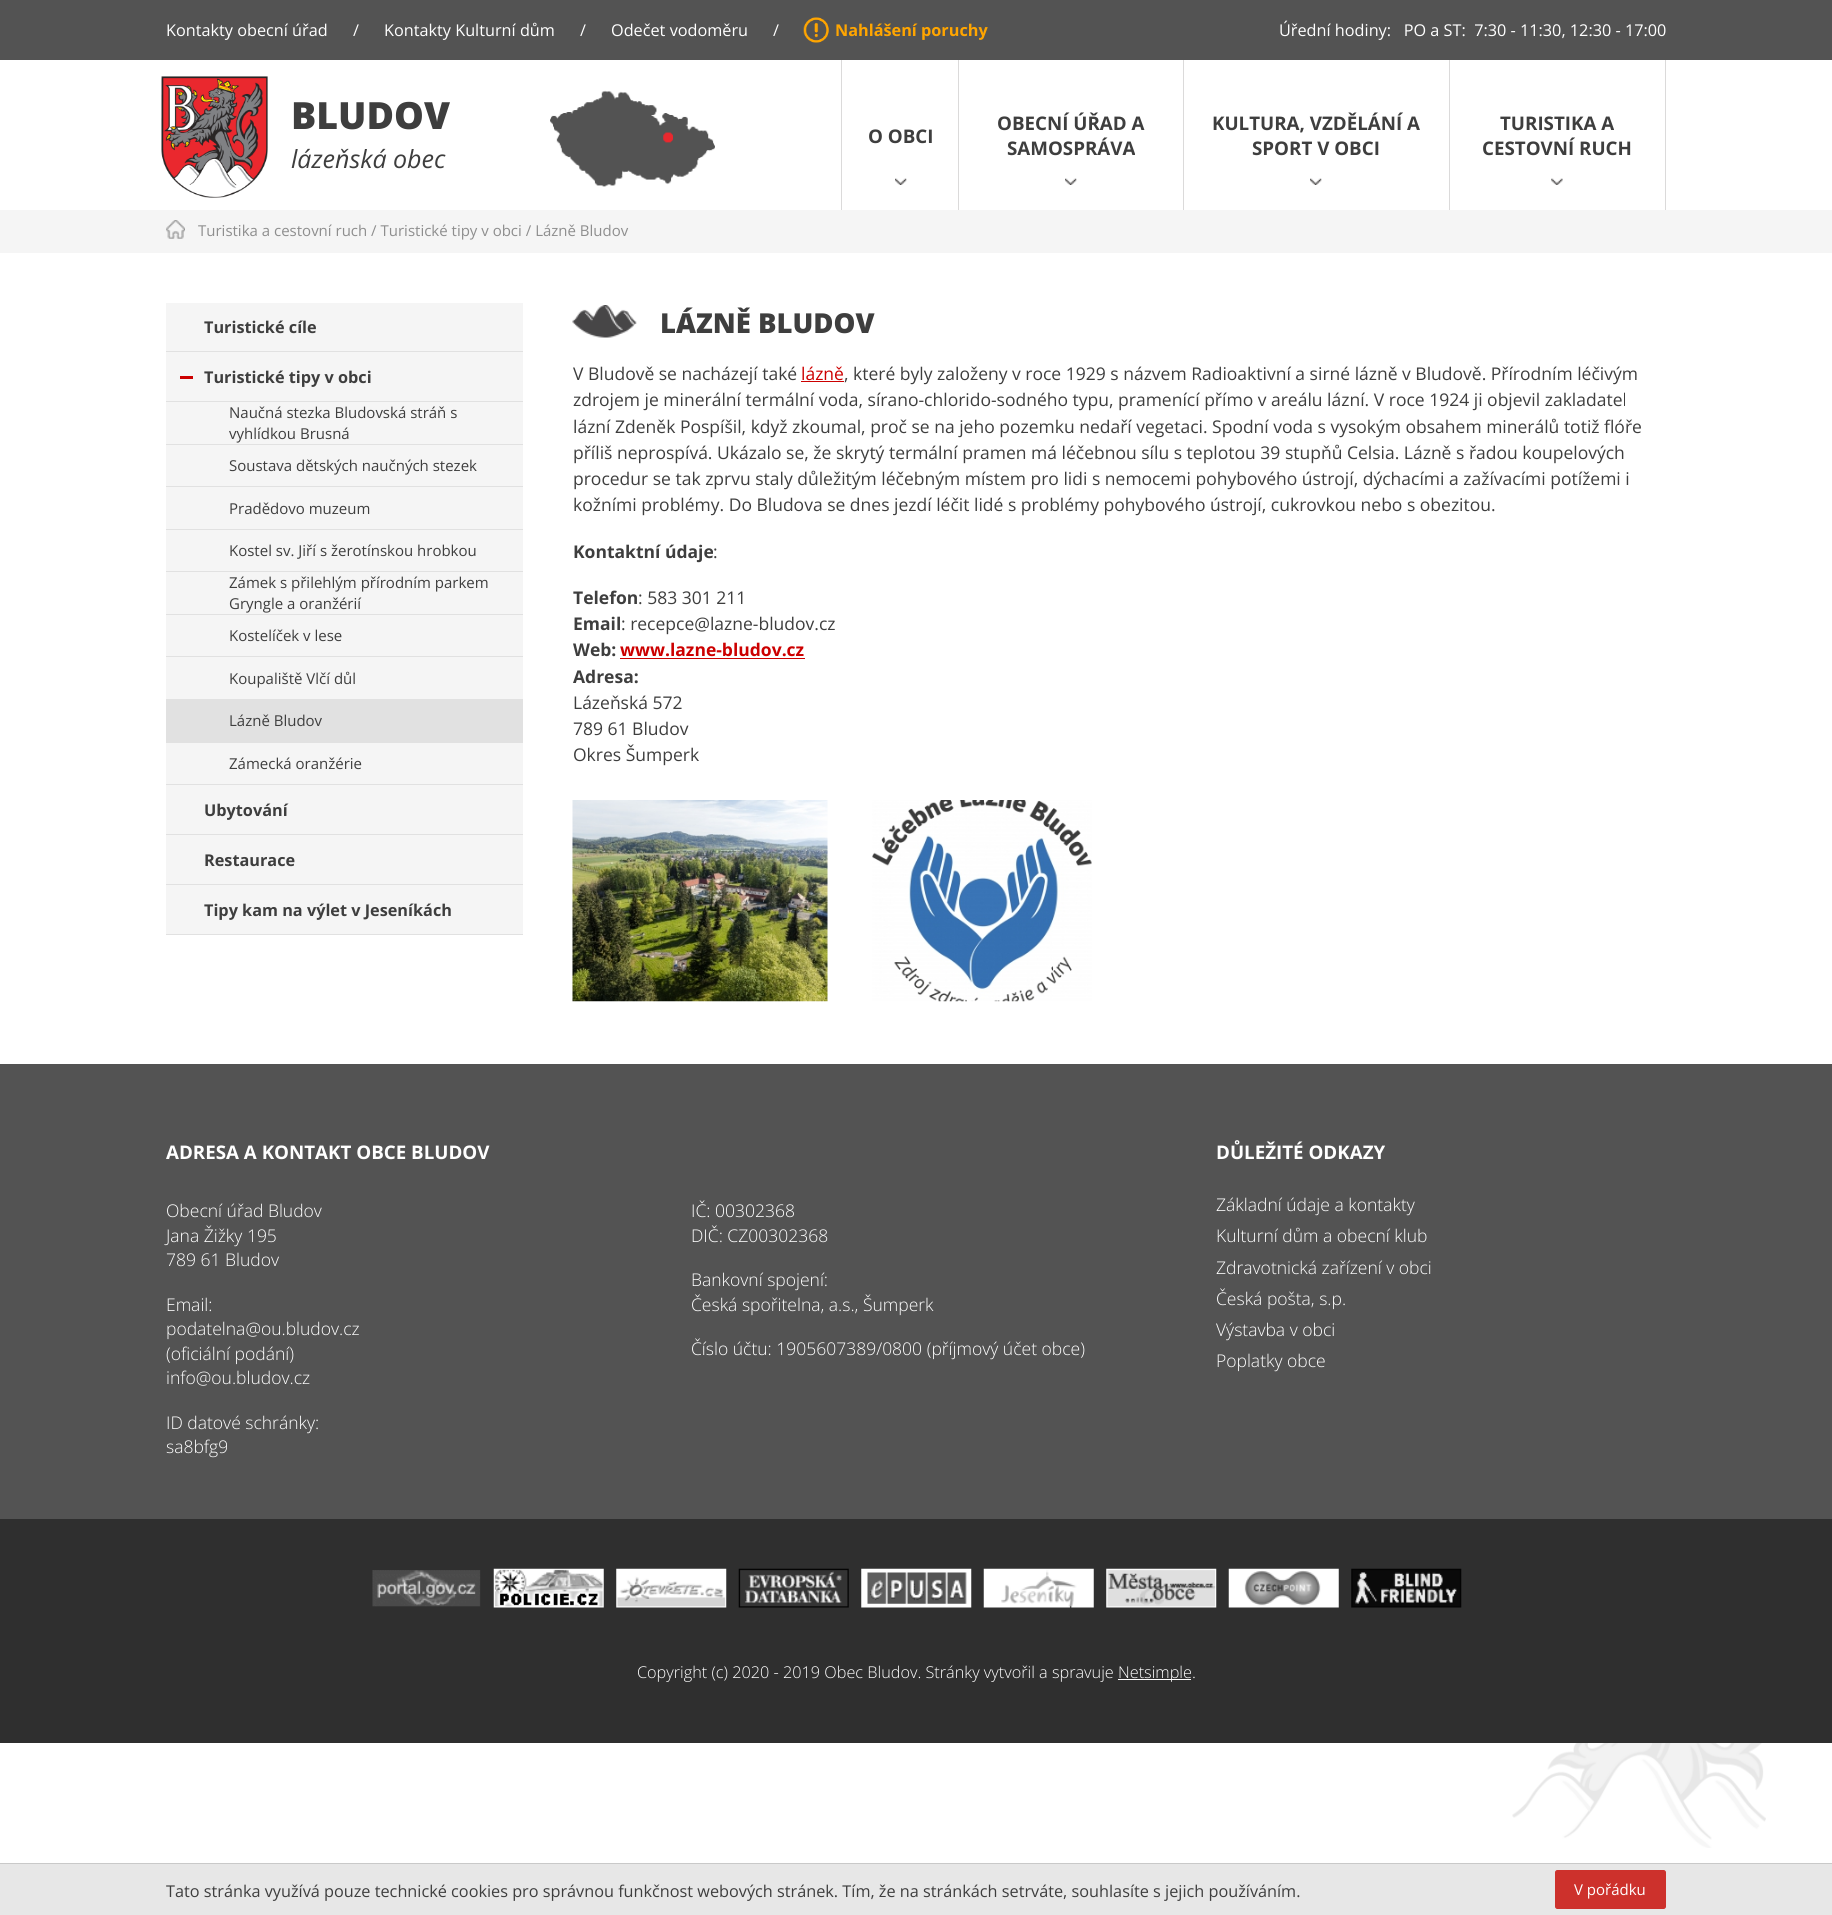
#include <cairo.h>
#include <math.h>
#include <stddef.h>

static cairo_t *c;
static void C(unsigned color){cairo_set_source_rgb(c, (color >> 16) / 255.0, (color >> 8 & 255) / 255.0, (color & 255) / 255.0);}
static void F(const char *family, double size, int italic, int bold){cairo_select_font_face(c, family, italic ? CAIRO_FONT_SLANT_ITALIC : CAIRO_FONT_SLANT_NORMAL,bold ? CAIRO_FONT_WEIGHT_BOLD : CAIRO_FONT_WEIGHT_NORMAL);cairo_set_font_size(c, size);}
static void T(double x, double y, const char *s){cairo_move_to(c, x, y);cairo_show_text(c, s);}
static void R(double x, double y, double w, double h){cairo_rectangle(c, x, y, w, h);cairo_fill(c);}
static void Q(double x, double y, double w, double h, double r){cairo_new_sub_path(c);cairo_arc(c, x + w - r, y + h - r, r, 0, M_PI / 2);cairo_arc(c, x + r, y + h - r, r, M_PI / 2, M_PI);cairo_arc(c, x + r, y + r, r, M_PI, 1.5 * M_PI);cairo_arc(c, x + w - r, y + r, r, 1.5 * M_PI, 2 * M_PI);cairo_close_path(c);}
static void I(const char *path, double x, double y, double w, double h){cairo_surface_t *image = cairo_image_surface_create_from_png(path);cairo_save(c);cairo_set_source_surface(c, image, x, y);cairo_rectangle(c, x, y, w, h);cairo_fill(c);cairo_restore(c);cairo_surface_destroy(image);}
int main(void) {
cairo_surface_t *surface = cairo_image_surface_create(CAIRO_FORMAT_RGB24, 1832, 1915);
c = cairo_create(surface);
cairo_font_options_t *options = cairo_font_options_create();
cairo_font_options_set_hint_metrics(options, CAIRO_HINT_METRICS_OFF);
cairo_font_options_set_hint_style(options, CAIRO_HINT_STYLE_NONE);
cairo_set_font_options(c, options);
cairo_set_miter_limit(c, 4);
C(0xffffff);
cairo_paint(c);
C(0x535353);
R(0,0,1832,60);
F("Open Sans",16.25,0,0);
C(0xffffff);
T(166,36,"Kontakty obecní úřad");
T(353,36,"/");
T(384,36,"Kontakty Kulturní dům");
T(580,36,"/");
T(611,36,"Odečet vodoměru");
T(773,36,"/");
I("1.png",803,17,26,26);
F("Open Sans",16.25,0,1);
C(0xffa500);
T(835,36,"Nahlášení poruchy");
F("Open Sans",16.25,0,0);
C(0xffffff);
T(1279,36,"Úřední hodiny:   PO a ST:  7:30 - 11:30, 12:30 - 17:00");
I("2.png",161,76,107,122);
F("Open Sans ExtraBold",37.5,0,0);
C(0x3e3e3e);
T(291,129,"BLUDOV");
F("Open Sans",25,1,0);
T(291,168,"lázeňská obec");
I("3.png",550,90,165,97);
C(0xdbdada);
R(841,60,1,150);
I("4.png",895,178,12,7);
F("Open Sans",18.75,0,1);
C(0x3e3e3e);
T(868,143,"O OBCI");
C(0xdbdada);
R(958,60,1,150);
I("4.png",1065,178,12,7);
C(0x3e3e3e);
T(997,130,"OBECNÍ ÚŘAD A");
T(1007,155,"SAMOSPRÁVA");
C(0xdbdada);
R(1183,60,1,150);
I("4.png",1310,178,12,7);
C(0x3e3e3e);
T(1212,130,"KULTURA, VZDĚLÁNÍ A");
T(1252,155,"SPORT V OBCI");
C(0xdbdada);
R(1665,60,1,150);
R(1449,60,1,150);
I("5.png",1551,178,12,7);
C(0x3e3e3e);
T(1500,130,"TURISTIKA A");
T(1482,155,"CESTOVNÍ RUCH");
C(0xf5f5f5);
R(0,210,1832,43);
I("6.png",166,220,19,19);
F("Open Sans",15,0,0);
C(0x8e8e8e);
T(198,236,"Turistika a cestovní ruch / Turistické tipy v obci / Lázně Bludov");
C(0xf5f5f5);
R(166,303,357,141);
C(0xe1e1e1);
R(166,351,357,1);
F("Open Sans",16.25,0,1);
C(0x3e3e3e);
T(204,333,"Turistické cíle");
C(0xe1e1e1);
R(166,401,357,1);
C(0xcc0000);
R(180,376,13,3);
C(0x3e3e3e);
T(204,383,"Turistické tipy v obci");
C(0xe1e1e1);
R(166,444,357,1);
F("Open Sans",15,0,0);
C(0x3e3e3e);
T(229,418,"Naučná stezka Bludovská stráň s");
T(229,439,"vyhlídkou Brusná");
C(0xf5f5f5);
R(166,445,357,84);
C(0xe1e1e1);
R(166,486,357,1);
C(0x3e3e3e);
T(229,471,"Soustava dětských naučných stezek");
C(0xe1e1e1);
R(166,529,357,1);
C(0x3e3e3e);
T(229,514,"Pradědovo muzeum");
C(0xf5f5f5);
R(166,530,357,84);
C(0xe1e1e1);
R(166,571,357,1);
C(0x3e3e3e);
T(229,556,"Kostel sv. Jiří s žerotínskou hrobkou");
C(0xe1e1e1);
R(166,614,357,1);
C(0x3e3e3e);
T(229,588,"Zámek s přilehlým přírodním parkem");
T(229,609,"Gryngle a oranžérií");
C(0xf5f5f5);
R(166,615,357,84);
C(0xe1e1e1);
R(166,656,357,1);
C(0x3e3e3e);
T(229,641,"Kostelíček v lese");
C(0xe1e1e1);
R(166,699,357,44);
C(0x3e3e3e);
T(229,684,"Koupaliště Vlčí důl");
T(229,726,"Lázně Bludov");
C(0xf5f5f5);
R(166,743,357,41);
C(0xe1e1e1);
R(166,784,357,1);
C(0x3e3e3e);
T(229,769,"Zámecká oranžérie");
C(0xf5f5f5);
R(166,785,357,49);
C(0xe1e1e1);
R(166,834,357,1);
F("Open Sans",16.25,0,1);
C(0x3e3e3e);
T(204,816,"Ubytování");
C(0xf5f5f5);
R(166,835,357,49);
C(0xe1e1e1);
R(166,884,357,1);
C(0x3e3e3e);
T(204,866,"Restaurace");
C(0xf5f5f5);
R(166,885,357,49);
C(0xe1e1e1);
R(166,934,357,1);
C(0x3e3e3e);
T(204,916,"Tipy kam na výlet v Jeseníkách");
I("7.png",572,305,65,33);
F("Open Sans ExtraBold",27.5,0,0);
T(660,333,"LÁZNĚ BLUDOV");
F("Open Sans",17.5,0,0);
T(573,380,"V Bludově se nacházejí také");
C(0xcc0000);
T(801,380,"lázně");
R(801,381,43,1);
C(0x3e3e3e);
T(844,380,", které byly založeny v roce 1929 s názvem Radioaktivní a sirné lázně v Bludově. Přírodním léčivým");
T(573,406,"zdrojem je minerální termální voda, sírano-chlorido-sodného typu, pramenící přímo v areálu lázní. V roce 1924 ji objevil zakladatel");
T(573,433,"lázní Zdeněk Pospíšil, když zkoumal, proč se na jeho pozemku nedaří vegetaci. Spodní voda s vysokým obsahem minerálů totiž flóře");
T(573,459,"příliš neprospívá. Ukázalo se, že skrytý termální pramen má léčebnou sílu s teplotou 39 stupňů Celsia. Lázně s řadou koupelových");
T(573,485,"procedur se tak zprvu staly důležitým léčebným místem pro lidi s nemocemi pohybového ústrojí, dýchacími a zažívacími potížemi i");
T(573,511,"kožními problémy. Do Bludova se dnes jezdí léčit lidé s problémy pohybového ústrojí, cukrovkou nebo s obezitou.");
F("Open Sans",17.5,0,1);
T(573,558,"Kontaktní údaje");
F("Open Sans",17.5,0,0);
T(713,558,":");
F("Open Sans",17.5,0,1);
T(573,604,"Telefon");
F("Open Sans",17.5,0,0);
T(638,604,": 583 301 211");
F("Open Sans",17.5,0,1);
T(573,630,"Email");
F("Open Sans",17.5,0,0);
T(621,630,": recepce@lazne-bludov.cz");
F("Open Sans",17.5,0,1);
T(573,656,"Web:");
C(0xcc0000);
T(620,656,"www.lazne-bludov.cz");
R(620,658,185,1);
C(0x3e3e3e);
T(573,683,"Adresa:");
F("Open Sans",17.5,0,0);
T(573,709,"Lázeňská 572");
T(573,735,"789 61 Bludov");
T(573,761,"Okres Šumperk");
I("8.png",572,800,256,202);
I("9.png",872,800,220,202);
C(0x535353);
R(0,1064,1832,455);
F("Open Sans",18.75,0,1);
C(0xffffff);
T(166,1159,"ADRESA A KONTAKT OBCE BLUDOV");
F("Open Sans Light",17.5,0,0);
T(166,1217,"Obecní úřad Bludov");
T(166,1242,"Jana Žižky 195");
T(166,1266,"789 61 Bludov");
T(166,1311,"Email:");
T(166,1335,"podatelna@ou.bludov.cz");
T(166,1360,"(oficiální podání)");
T(166,1384,"info@ou.bludov.cz");
T(166,1429,"ID datové schránky:");
T(166,1453,"sa8bfg9");
T(691,1217,"IČ: 00302368");
T(691,1242,"DIČ: CZ00302368");
T(691,1286,"Bankovní spojení:");
T(691,1311,"Česká spořitelna, a.s., Šumperk");
T(691,1355,"Číslo účtu: 1905607389/0800 (příjmový účet obce)");
F("Open Sans",18.75,0,1);
T(1216,1159,"DŮLEŽITÉ ODKAZY");
F("Open Sans Light",17.5,0,0);
T(1216,1211,"Základní údaje a kontakty");
T(1216,1242,"Kulturní dům a obecní klub");
T(1216,1274,"Zdravotnická zařízení v obci");
T(1216,1305,"Česká pošta, s.p.");
T(1216,1336,"Výstavba v obci");
T(1216,1367,"Poplatky obce");
C(0x2f2f2f);
R(0,1519,1832,224);
I("10.png",372,1570,109,37);
I("11.png",493,1568,111,40);
I("12.png",616,1568,111,40);
I("13.png",738,1568,111,40);
I("14.png",861,1568,111,40);
I("15.png",983,1568,111,40);
I("16.png",1106,1568,111,40);
I("17.png",1228,1568,111,40);
I("18.png",1351,1568,111,40);
F("Open Sans Light",16.25,0,0);
C(0xffffff);
T(637,1678,"Copyright (c) 2020 - 2019 Obec Bludov. Stránky vytvořil a spravuje");
R(1118,1679,73,1);
T(1118,1678,"Netsimple.");
I("19.png",1512,1743,254,105);
C(0xe7e7e7);
R(0,1864,1832,51);
C(0xc9c9c9);
R(0,1863,1832,1);
F("Open Sans",16.25,0,0);
C(0x3e3e3e);
T(166,1897,"Tato stránka využívá pouze technické cookies pro správnou funkčnost webových stránek. Tím, že na stránkách setrváte, souhlasíte s jejich používáním.");
C(0xcd312c);
Q(1555.5,1870.5,110,38,2);
cairo_fill_preserve(c);
cairo_set_line_width(c,1);
cairo_stroke(c);
F("Open Sans",15,0,0);
C(0xffffff);
T(1574,1895,"V pořádku");
cairo_surface_write_to_png(surface, "o.png");
cairo_font_options_destroy(options);
cairo_destroy(c);
cairo_surface_destroy(surface);
return 0;
}
